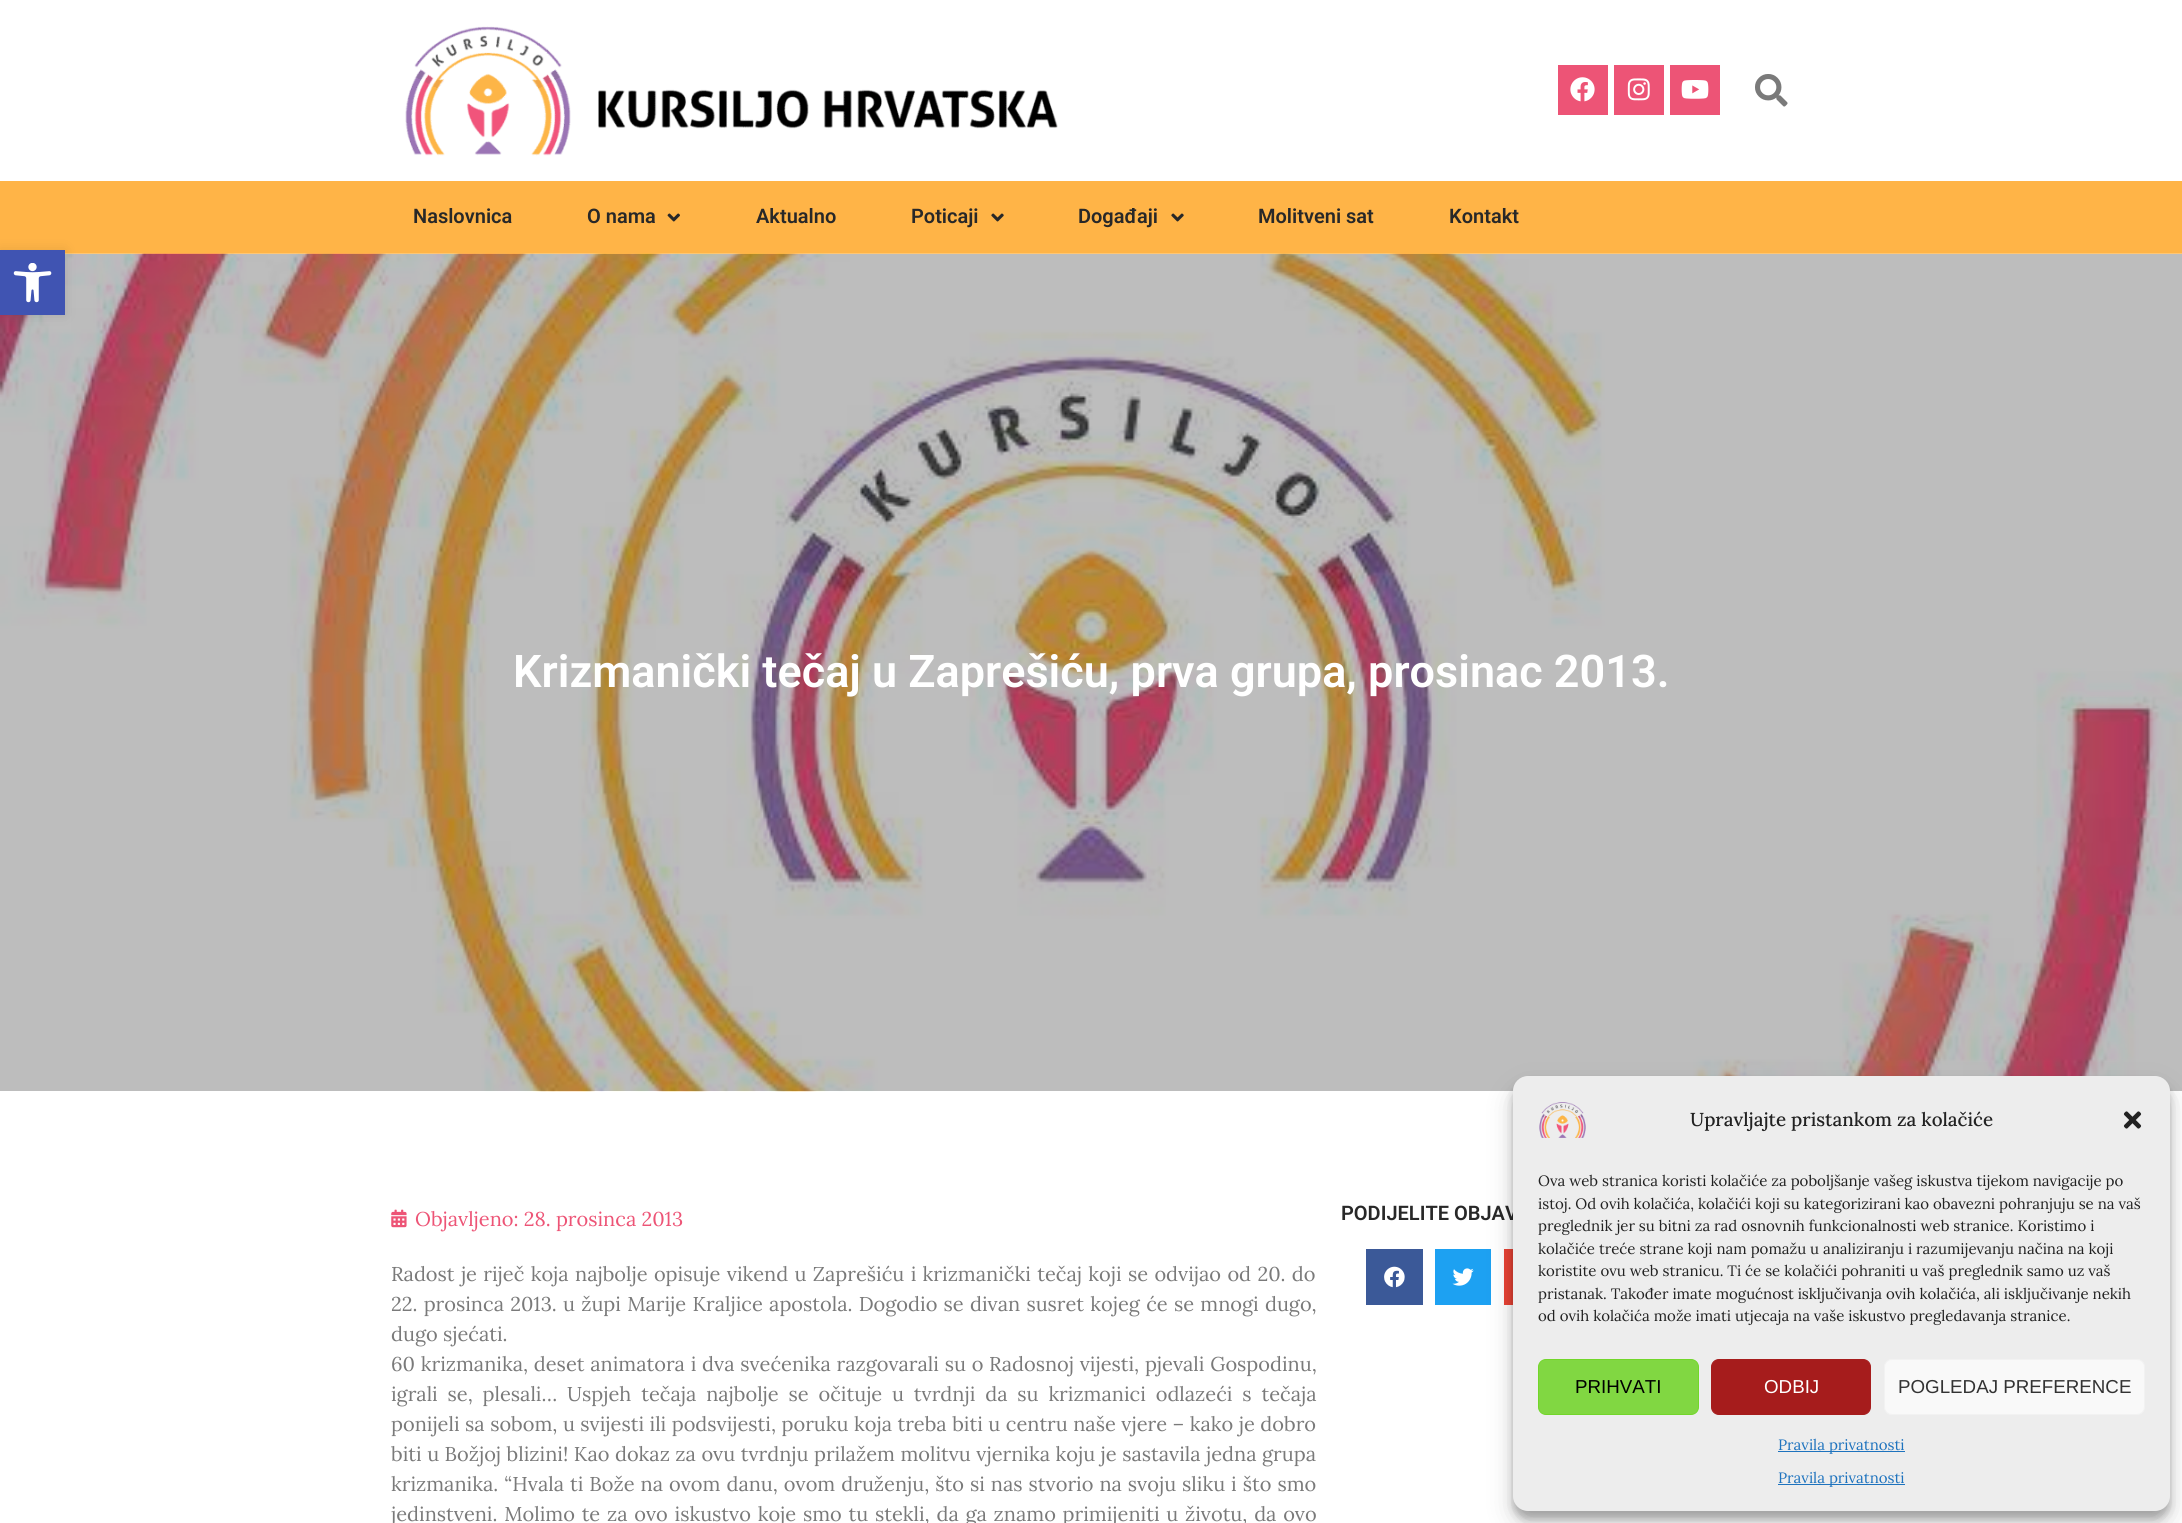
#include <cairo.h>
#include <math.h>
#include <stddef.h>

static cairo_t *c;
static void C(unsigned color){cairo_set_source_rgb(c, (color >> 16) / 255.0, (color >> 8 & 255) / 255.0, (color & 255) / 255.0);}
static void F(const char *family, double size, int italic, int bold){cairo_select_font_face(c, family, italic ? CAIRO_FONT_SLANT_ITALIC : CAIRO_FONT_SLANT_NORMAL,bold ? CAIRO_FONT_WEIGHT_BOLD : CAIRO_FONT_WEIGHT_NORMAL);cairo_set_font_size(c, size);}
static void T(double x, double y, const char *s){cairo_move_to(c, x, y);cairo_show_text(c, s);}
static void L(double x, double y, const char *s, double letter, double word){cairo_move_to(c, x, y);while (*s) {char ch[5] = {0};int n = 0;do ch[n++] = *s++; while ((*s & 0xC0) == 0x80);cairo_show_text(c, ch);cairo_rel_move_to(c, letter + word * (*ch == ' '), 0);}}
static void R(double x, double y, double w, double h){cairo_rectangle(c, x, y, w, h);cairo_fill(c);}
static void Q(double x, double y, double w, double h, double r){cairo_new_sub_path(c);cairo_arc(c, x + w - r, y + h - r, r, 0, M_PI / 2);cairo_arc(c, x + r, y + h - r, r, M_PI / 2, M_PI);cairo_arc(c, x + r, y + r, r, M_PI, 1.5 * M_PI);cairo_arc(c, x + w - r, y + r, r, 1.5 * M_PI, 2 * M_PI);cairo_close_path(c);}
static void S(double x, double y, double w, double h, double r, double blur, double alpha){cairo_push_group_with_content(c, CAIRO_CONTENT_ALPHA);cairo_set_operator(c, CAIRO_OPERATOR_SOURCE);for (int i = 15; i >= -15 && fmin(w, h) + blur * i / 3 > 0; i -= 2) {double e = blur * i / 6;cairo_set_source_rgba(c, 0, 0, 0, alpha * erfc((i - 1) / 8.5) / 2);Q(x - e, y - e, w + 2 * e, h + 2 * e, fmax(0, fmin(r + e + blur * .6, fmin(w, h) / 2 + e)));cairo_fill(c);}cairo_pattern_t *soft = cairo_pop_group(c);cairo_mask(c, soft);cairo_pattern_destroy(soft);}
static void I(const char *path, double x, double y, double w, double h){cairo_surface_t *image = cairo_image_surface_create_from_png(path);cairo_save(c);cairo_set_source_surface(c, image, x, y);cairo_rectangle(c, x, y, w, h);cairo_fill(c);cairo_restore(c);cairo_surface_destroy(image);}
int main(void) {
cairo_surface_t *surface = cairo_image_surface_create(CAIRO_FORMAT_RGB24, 2182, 1523);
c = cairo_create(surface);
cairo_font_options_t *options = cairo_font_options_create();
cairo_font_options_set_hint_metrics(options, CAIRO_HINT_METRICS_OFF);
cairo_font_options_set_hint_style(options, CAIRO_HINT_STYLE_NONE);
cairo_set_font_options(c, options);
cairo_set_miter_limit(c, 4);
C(0xffffff);
cairo_paint(c);
I("1.png",405,26,653,130);
C(0xed5476);
R(1558,65,50,50);
I("2.png",1570,77,25,25);
R(1614,65,50,50);
I("3.png",1627,78,23,23);
R(1670,65,50,50);
I("4.png",1681,80,28,19);
I("5.png",1755,74,33,33);
C(0xffb447);
R(0,181,2182,73);
F("Roboto SemiBold",20,0,0);
C(0x282828);
T(413,223,"Naslovnica");
T(587,223,"O nama");
I("6.png",667,213,13,9);
T(756,223,"Aktualno");
T(911,223,"Poticaji");
I("7.png",991,213,13,9);
T(1078,223,"Događaji");
I("7.png",1171,213,13,9);
T(1258,223,"Molitveni sat");
T(1449,223,"Kontakt");
I("9.png",0,253,2182,839);
C(0x000000);
S(0,250,65,65,0,6,.1);
C(0x4054b2);
R(0,250,65,65);
I("8.png",13,263,39,40);
F("Roboto SemiBold",45,0,0);
C(0xffffff);
T(513,687,"Krizmanički tečaj u Zaprešiću, prva grupa, prosinac 2013.");
I("10.png",391,1209,16,19);
F("Lora",20,0,0);
C(0xed5476);
T(415,1226,"Objavljeno: 28. prosinca 2013");
C(0x7a7a7a);
L(391,1281,"Radost je riječ koja najbolje opisuje vikend u Zaprešiću i krizmanički tečaj koji se odvijao od 20. do",0,1.1);
L(391,1311,"22. prosinca 2013. u župi Marije Kraljice apostola. Dogodio se divan susret kojeg će se mnogi dugo,",0,1);
T(391,1341,"dugo sjećati.");
L(391,1371,"60 krizmanika, deset animatora i dva svećenika razgovarali su o Radosnoj vijesti, pjevali Gospodinu,",0,.5);
L(391,1401,"igrali se, plesali… Uspjeh tečaja najbolje se očituje u tvrdnji da su krizmanici odlazeći s tečaja",0,4.6);
L(391,1431,"ponijeli sa sobom, u svijesti ili podsvijesti, poruku koja treba biti u centru naše vjere – kako je dobro",0,.25);
L(391,1461,"biti u Božjoj blizini! Kao dokaz za ovu tvrdnju prilažem molitvu vjernika koju je sastavila jedna grupa",0,.25);
L(391,1491,"krizmanika. “Hvala ti Bože na ovom danu, ovom druženju, što si nas stvorio na svoju sliku i što smo",0,.75);
L(391,1521,"jedinstveni. Molimo te za ovo iskustvo koje smo tu stekli, da ga znamo primijeniti u životu, da ovo",0,1.5);
F("Roboto SemiBold",20,0,0);
C(0x282828);
T(1341,1220,"PODIJELITE OBJAV");
C(0x3b5998);
R(1366,1249,57,56);
I("11.png",1384,1266,21,22);
C(0x1da1f2);
R(1435,1249,56,56);
I("12.png",1452,1268,22,18);
C(0xea4335);
R(1504,1249,9,56);
C(0x000000);
S(1513,1084,657,435,15,4,.23);
S(1513,1089,657,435,15,12.5,.19);
C(0xededed);
Q(1513,1076,657,435,15);
cairo_fill(c);
I("13.png",1539,1102,47,36);
F("Lora Medium",18.75,0,0);
C(0x222222);
T(1690,1126,"Upravljajte pristankom za kolačiće");
I("14.png",2123,1111,19,18);
F("Lora",15,0,0);
T(1538,1186,"Ova web stranica koristi kolačiće za poboljšanje vašeg iskustva tijekom navigacije po");
T(1538,1209,"istoj. Od ovih kolačića, kolačići koji su kategorizirani kao obavezni pohranjuju se na vaš");
T(1538,1231,"preglednik jer su bitni za rad osnovnih funkcionalnosti web stranice. Koristimo i");
T(1538,1254,"kolačiće treće strane koji nam pomažu u analiziranju i razumijevanju načina na koji");
T(1538,1276,"koristite ovu web stranicu. Ti će se kolačići pohraniti u vaš preglednik samo uz vaš");
T(1538,1299,"pristanak. Također imate mogućnost isključivanja ovih kolačića, ali isključivanje nekih");
T(1538,1321,"od ovih kolačića može imati utjecaja na vaše iskustvo pregledavanja stranice.");
C(0x81d742);
Q(1538.5,1359.5,160,55,7.5);
cairo_fill_preserve(c);
C(0x72d62a);
cairo_set_line_width(c,1);
cairo_stroke(c);
F("Liberation Sans",18.75,0,0);
C(0x000000);
T(1575,1393,"PRIHVATI");
C(0xa61c1c);
Q(1711.5,1359.5,159,55,7.5);
cairo_fill_preserve(c);
cairo_stroke(c);
C(0xffffff);
T(1764,1393,"ODBIJ");
C(0xf9f9f9);
Q(1884.5,1359.5,260,55,7.5);
cairo_fill_preserve(c);
C(0xf2f2f2);
cairo_stroke(c);
C(0x333333);
T(1898,1393,"POGLEDAJ PREFERENCE");
C(0x1e73be);
R(1778,1451,127,1);
F("Lora",15,0,0);
T(1778,1450,"Pravila privatnosti");
R(1778,1484,127,1);
T(1778,1483,"Pravila privatnosti");
cairo_surface_write_to_png(surface, "o.png");
cairo_font_options_destroy(options);
cairo_destroy(c);
cairo_surface_destroy(surface);
return 0;
}
